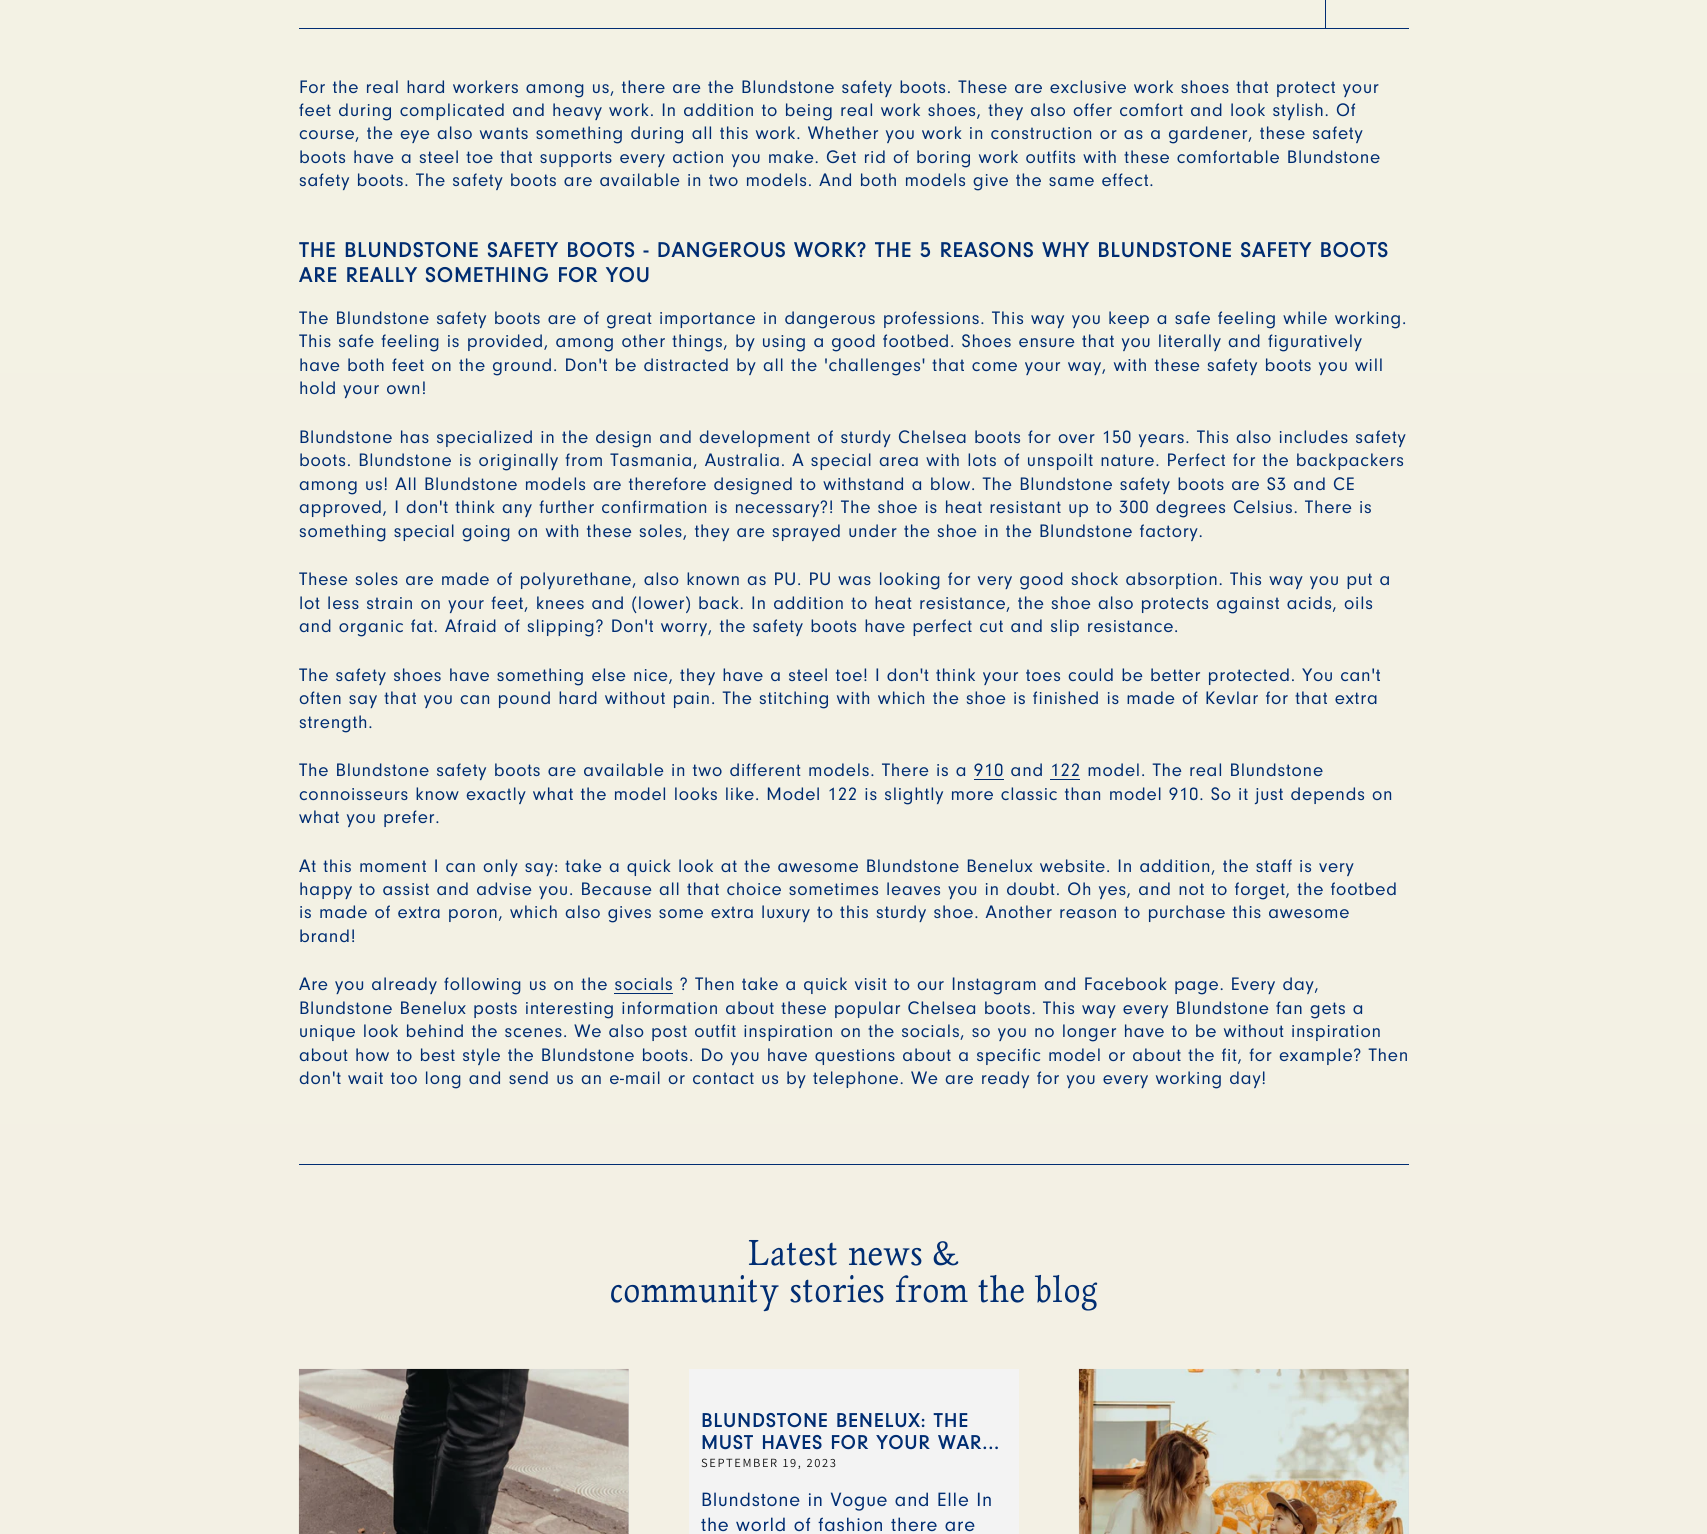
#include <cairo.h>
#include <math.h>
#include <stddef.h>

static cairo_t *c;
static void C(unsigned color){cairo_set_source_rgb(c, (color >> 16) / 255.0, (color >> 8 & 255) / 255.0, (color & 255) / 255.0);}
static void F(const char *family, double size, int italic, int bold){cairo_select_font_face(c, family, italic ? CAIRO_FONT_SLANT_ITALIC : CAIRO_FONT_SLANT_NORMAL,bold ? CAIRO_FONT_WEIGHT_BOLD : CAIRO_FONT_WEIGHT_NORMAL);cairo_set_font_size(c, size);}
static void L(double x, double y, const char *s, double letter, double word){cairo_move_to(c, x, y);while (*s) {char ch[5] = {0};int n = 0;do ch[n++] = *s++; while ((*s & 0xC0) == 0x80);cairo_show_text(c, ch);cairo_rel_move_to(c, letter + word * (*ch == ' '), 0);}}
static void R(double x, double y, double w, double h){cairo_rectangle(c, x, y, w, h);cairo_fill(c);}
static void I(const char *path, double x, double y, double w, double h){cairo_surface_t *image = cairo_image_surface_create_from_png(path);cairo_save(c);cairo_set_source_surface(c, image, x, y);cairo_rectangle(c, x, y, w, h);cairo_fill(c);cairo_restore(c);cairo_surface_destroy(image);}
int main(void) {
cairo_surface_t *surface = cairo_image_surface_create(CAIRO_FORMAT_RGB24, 1707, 1534);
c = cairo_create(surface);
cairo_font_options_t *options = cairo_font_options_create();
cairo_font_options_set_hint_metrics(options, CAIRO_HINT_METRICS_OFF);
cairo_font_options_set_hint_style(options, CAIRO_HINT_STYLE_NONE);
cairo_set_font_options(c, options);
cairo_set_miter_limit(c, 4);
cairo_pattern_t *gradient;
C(0xffffff);
cairo_paint(c);
gradient = cairo_pattern_create_linear(854,0,854,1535);
cairo_pattern_add_color_stop_rgba(gradient,0,0.953,0.949,0.894,1);
cairo_pattern_add_color_stop_rgba(gradient,1,0.953,0.941,0.894,1);
cairo_set_source(c,gradient);
cairo_pattern_destroy(gradient);
R(0,0,1707,1534);
C(0x002d72);
R(299,28,1110,1);
R(1325,0,1,28);
R(299,1164,1110,1);
F("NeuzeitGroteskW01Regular",18.78,0,0);
L(299,93,"For the real hard workers among us, there are the Blundstone safety boots. These are exclusive work shoes that protect your",.75,0);
L(299,116,"feet during complicated and heavy work. In addition to being real work shoes, they also offer comfort and look stylish. Of",.75,0);
L(299,139,"course, the eye also wants something during all this work. Whether you work in construction or as a gardener, these safety",.75,0);
L(299,163,"boots have a steel toe that supports every action you make. Get rid of boring work outfits with these comfortable Blundstone",.75,0);
L(299,186,"safety boots. The safety boots are available in two models. And both models give the same effect.",.75,0);
F("NeuzeitGroteskW01Regular",21.35,0,1);
L(299,257,"THE BLUNDSTONE SAFETY BOOTS - DANGEROUS WORK? THE 5 REASONS WHY BLUNDSTONE SAFETY BOOTS",1.25,0);
L(299,282,"ARE REALLY SOMETHING FOR YOU",1.25,0);
F("NeuzeitGroteskW01Regular",18.78,0,0);
L(299,324,"The Blundstone safety boots are of great importance in dangerous professions. This way you keep a safe feeling while working.",.75,0);
L(299,347,"This safe feeling is provided, among other things, by using a good footbed. Shoes ensure that you literally and figuratively",.75,0);
L(299,371,"have both feet on the ground. Don't be distracted by all the 'challenges' that come your way, with these safety boots you will",.75,0);
L(299,394,"hold your own!",.75,0);
L(299,443,"Blundstone has specialized in the design and development of sturdy Chelsea boots for over 150 years. This also includes safety",.75,0);
L(299,466,"boots. Blundstone is originally from Tasmania, Australia. A special area with lots of unspoilt nature. Perfect for the backpackers",.75,0);
L(299,490,"among us! All Blundstone models are therefore designed to withstand a blow. The Blundstone safety boots are S3 and CE",.75,0);
L(299,513,"approved, I don't think any further confirmation is necessary?! The shoe is heat resistant up to 300 degrees Celsius. There is",.75,0);
L(299,537,"something special going on with these soles, they are sprayed under the shoe in the Blundstone factory.",.75,0);
L(299,585,"These soles are made of polyurethane, also known as PU. PU was looking for very good shock absorption. This way you put a",.75,0);
L(299,609,"lot less strain on your feet, knees and (lower) back. In addition to heat resistance, the shoe also protects against acids, oils",.75,0);
L(299,632,"and organic fat. Afraid of slipping? Don't worry, the safety boots have perfect cut and slip resistance.",.75,0);
L(299,681,"The safety shoes have something else nice, they have a steel toe! I don't think your toes could be better protected. You can't",.75,0);
L(299,704,"often say that you can pound hard without pain. The stitching with which the shoe is finished is made of Kevlar for that extra",.75,0);
L(299,728,"strength.",.75,0);
L(299,776,"The Blundstone safety boots are available in two different models. There is a 910 and 122 model. The real Blundstone",.75,0);
R(974,779,30,1);
R(1050,779,30,1);
L(299,800,"connoisseurs know exactly what the model looks like. Model 122 is slightly more classic than model 910. So it just depends on",.75,0);
L(299,823,"what you prefer.",.75,0);
L(299,872,"At this moment I can only say: take a quick look at the awesome Blundstone Benelux website. In addition, the staff is very",.75,0);
L(299,895,"happy to assist and advise you. Because all that choice sometimes leaves you in doubt. Oh yes, and not to forget, the footbed",.75,0);
L(299,918,"is made of extra poron, which also gives some extra luxury to this sturdy shoe. Another reason to purchase this awesome",.75,0);
L(299,942,"brand!",.75,0);
L(299,990,"Are you already following us on the socials ? Then take a quick visit to our Instagram and Facebook page. Every day,",.75,0);
R(614,993,59,1);
L(299,1014,"Blundstone Benelux posts interesting information about these popular Chelsea boots. This way every Blundstone fan gets a",.75,0);
L(299,1037,"unique look behind the scenes. We also post outfit inspiration on the socials, so you no longer have to be without inspiration",.75,0);
L(299,1061,"about how to best style the Blundstone boots. Do you have questions about a specific model or about the fit, for example? Then",.75,0);
L(299,1084,"don't wait too long and send us an e-mail or contact us by telephone. We are ready for you every working day!",.75,0);
F("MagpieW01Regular",35,0,0);
L(748,1265,"Latest news &",.75,0);
L(610,1302,"community stories from the blog",.75,0);
C(0xdddddd);
R(628,1369,1,165);
I("1.png",298,1368,331,166);
C(0xf3f3f3);
R(689,1369,330,165);
F("NeuzeitGroteskW01Regular",20,0,1);
C(0x002d72);
L(701,1427,"BLUNDSTONE BENELUX: THE",1.25,0);
L(701,1449,"MUST HAVES FOR YOUR WAR...",1.25,0);
F("Assistant",12.5,0,0);
C(0x121212);
L(701,1467,"SEPTEMBER 19, 2023",1.6,0);
F("NeuzeitGroteskW01Regular",20,0,0);
C(0x002d72);
L(701,1506,"Blundstone in Vogue and Elle In",.75,0);
L(701,1531,"the world of fashion there are",.75,0);
C(0xdddddd);
R(1408,1369,1,165);
I("2.png",1078,1368,331,166);
cairo_surface_write_to_png(surface, "o.png");
cairo_font_options_destroy(options);
cairo_destroy(c);
cairo_surface_destroy(surface);
return 0;
}
